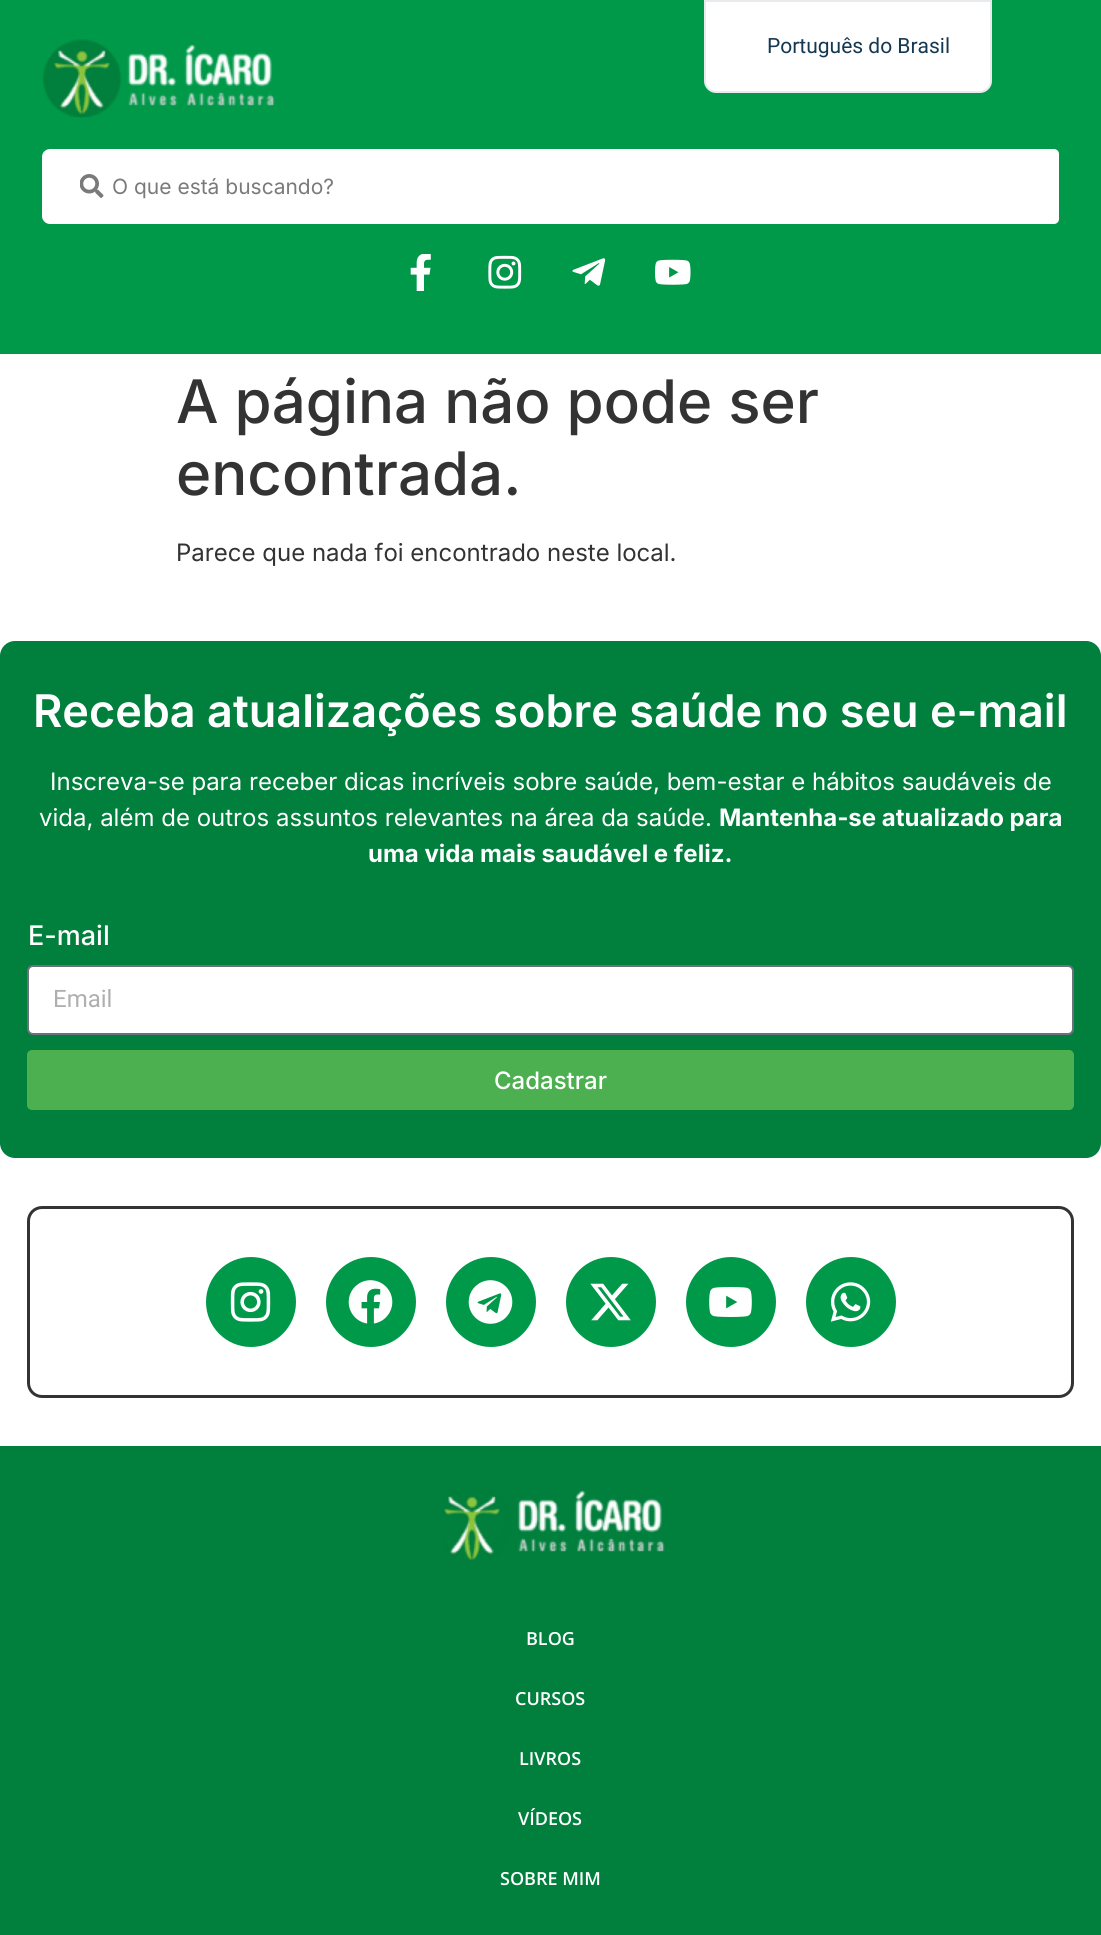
#include <cairo.h>
#include <math.h>
#include <stddef.h>

static cairo_t *c;
static void C(unsigned color){cairo_set_source_rgb(c, (color >> 16) / 255.0, (color >> 8 & 255) / 255.0, (color & 255) / 255.0);}
static void F(const char *family, double size, int italic, int bold){cairo_select_font_face(c, family, italic ? CAIRO_FONT_SLANT_ITALIC : CAIRO_FONT_SLANT_NORMAL,bold ? CAIRO_FONT_WEIGHT_BOLD : CAIRO_FONT_WEIGHT_NORMAL);cairo_set_font_size(c, size);}
static void T(double x, double y, const char *s){cairo_move_to(c, x, y);cairo_show_text(c, s);}
static void R(double x, double y, double w, double h){cairo_rectangle(c, x, y, w, h);cairo_fill(c);}
static void Q(double x, double y, double w, double h, double r){cairo_new_sub_path(c);cairo_arc(c, x + w - r, y + h - r, r, 0, M_PI / 2);cairo_arc(c, x + r, y + h - r, r, M_PI / 2, M_PI);cairo_arc(c, x + r, y + r, r, M_PI, 1.5 * M_PI);cairo_arc(c, x + w - r, y + r, r, 1.5 * M_PI, 2 * M_PI);cairo_close_path(c);}
static void I(const char *path, double x, double y, double w, double h){cairo_surface_t *image = cairo_image_surface_create_from_png(path);cairo_save(c);cairo_set_source_surface(c, image, x, y);cairo_rectangle(c, x, y, w, h);cairo_fill(c);cairo_restore(c);cairo_surface_destroy(image);}
int main(void) {
cairo_surface_t *surface = cairo_image_surface_create(CAIRO_FORMAT_RGB24, 1101, 1935);
c = cairo_create(surface);
cairo_font_options_t *options = cairo_font_options_create();
cairo_font_options_set_hint_metrics(options, CAIRO_HINT_METRICS_OFF);
cairo_font_options_set_hint_style(options, CAIRO_HINT_STYLE_NONE);
cairo_set_font_options(c, options);
cairo_set_miter_limit(c, 4);
C(0xffffff);
cairo_paint(c);
C(0x009949);
R(0,0,1101,354);
C(0xffffff);
cairo_new_path(c);
cairo_move_to(c,704,0);
cairo_line_to(c,992,0);
cairo_line_to(c,992,81);
cairo_curve_to(c,992,87.5,986.5,93,980,93);
cairo_line_to(c,716,93);
cairo_curve_to(c,709.5,93,704,87.5,704,81);
cairo_close_path(c);
cairo_fill(c);
cairo_new_path(c);
cairo_move_to(c,705,1);
cairo_line_to(c,991,1);
cairo_line_to(c,991,81);
cairo_curve_to(c,991,87,986,92,980,92);
cairo_line_to(c,716,92);
cairo_curve_to(c,710,92,705,87,705,81);
cairo_close_path(c);
cairo_set_source_rgba(c,0.078,0.22,0.322,0.1);
cairo_stroke(c);
F("Roboto",21,0,0);
C(0x143852);
T(767,53,"Português do Brasil");
I("1.png",42,39,233,79);
C(0xffffff);
Q(42,149,1017,75,8);
cairo_fill(c);
Q(57,149,1002,75,5);
cairo_fill(c);
I("2.png",80,174,24,24);
F("Inter",21,0,0);
C(0x7a7a7a);
T(112,194,"O que está buscando?");
I("3.png",410,254,21,37);
I("4.png",488,255,34,34);
I("5.png",572,258,34,28);
I("6.png",655,259,36,26);
F("Inter Medium",60,0,0);
C(0x333333);
T(176,423,"A página não pode ser");
T(176,495,"encontrada.");
F("Inter",24,0,0);
T(176,561,"Parece que nada foi encontrado neste local.");
C(0x007f3d);
Q(0,641,1101,517,15);
cairo_fill(c);
F("Inter SemiBold",45,0,0);
C(0xffffff);
T(33,727,"Receba atualizações sobre saúde no seu e-mail");
F("Inter",24,0,0);
T(50,790,"Inscreva-se para receber dicas incríveis sobre saúde, bem-estar e hábitos saudáveis de");
T(39,826,"vida, além de outros assuntos relevantes na área da saúde.");
F("Inter",24,0,1);
T(719,826,"Mantenha-se atualizado para");
T(368,862,"uma vida mais saudável e feliz.");
F("Inter Medium",27,0,0);
T(28,945,"E-mail");
Q(28,966,1045,68,5);
cairo_fill_preserve(c);
C(0x69727d);
cairo_stroke(c);
F("Roboto",24,0,0);
C(0xafafaf);
T(53,1007,"Email");
C(0x4caf50);
Q(27,1050,1047,60,5);
cairo_fill(c);
F("Inter Medium",24,0,0);
C(0xffffff);
T(494,1089,"Cadastrar");
Q(28.5,1207.5,1044,189,13.5);
C(0x333333);
cairo_set_line_width(c,3);
cairo_stroke(c);
C(0x009949);
cairo_arc(c,251,1302,45,0,2 * M_PI);
cairo_fill(c);
I("7.png",230,1282,41,40);
cairo_arc(c,371,1302,45,0,2 * M_PI);
cairo_fill(c);
I("8.png",348,1280,45,44);
cairo_arc(c,491,1302,45,0,2 * M_PI);
cairo_fill(c);
I("9.png",468,1280,45,44);
cairo_arc(c,611,1302,45,0,2 * M_PI);
cairo_fill(c);
I("10.png",590,1283,41,38);
cairo_arc(c,731,1302,45,0,2 * M_PI);
cairo_fill(c);
I("11.png",709,1287,43,30);
cairo_arc(c,851,1302,45,0,2 * M_PI);
cairo_fill(c);
I("12.png",830,1282,41,40);
C(0x007f3d);
R(0,1446,1101,489);
I("13.png",443,1490,222,71);
F("Open Sans SemiBold",18,0,0);
C(0xffffff);
T(526,1645,"BLOG");
T(515,1705,"CURSOS");
T(519,1765,"LIVROS");
T(518,1825,"VÍDEOS");
T(500,1885,"SOBRE MIM");
cairo_surface_write_to_png(surface, "o.png");
cairo_font_options_destroy(options);
cairo_destroy(c);
cairo_surface_destroy(surface);
return 0;
}
